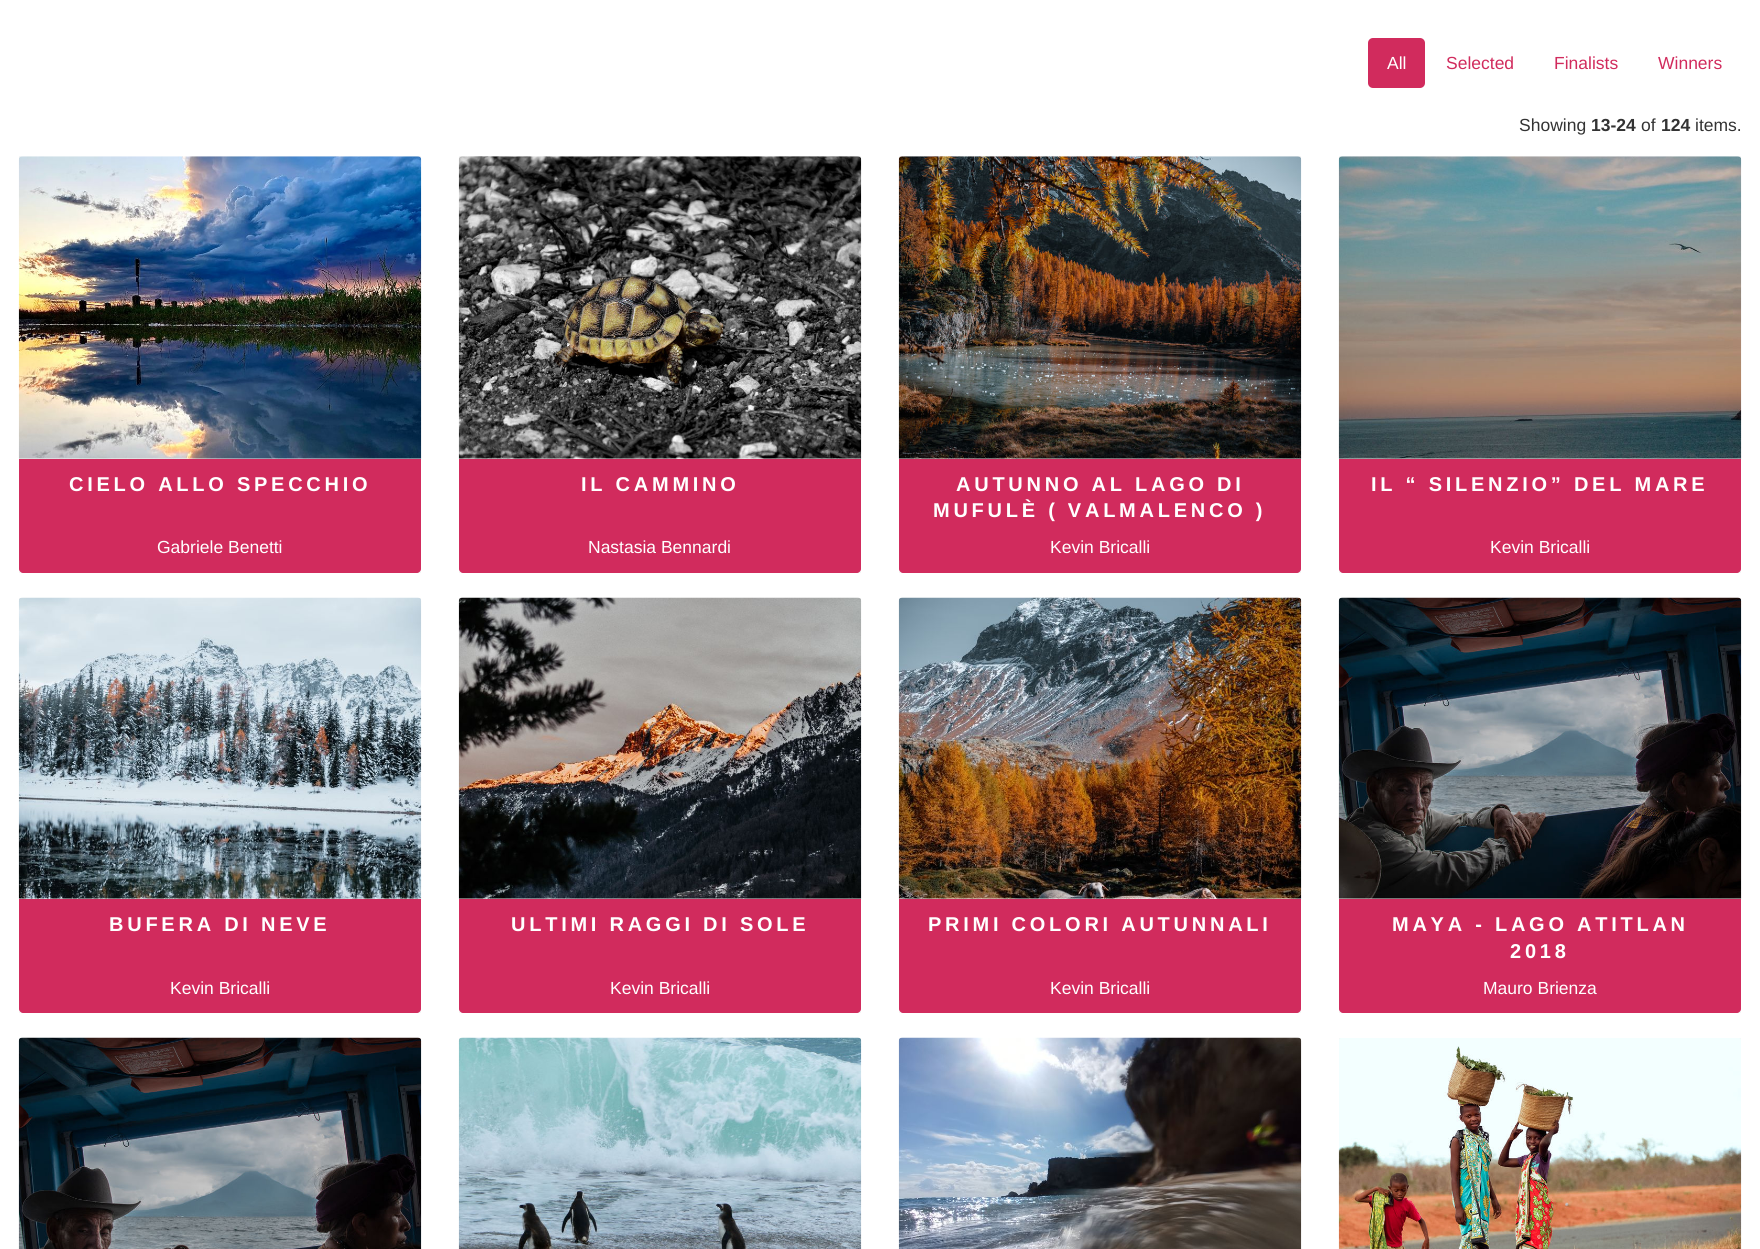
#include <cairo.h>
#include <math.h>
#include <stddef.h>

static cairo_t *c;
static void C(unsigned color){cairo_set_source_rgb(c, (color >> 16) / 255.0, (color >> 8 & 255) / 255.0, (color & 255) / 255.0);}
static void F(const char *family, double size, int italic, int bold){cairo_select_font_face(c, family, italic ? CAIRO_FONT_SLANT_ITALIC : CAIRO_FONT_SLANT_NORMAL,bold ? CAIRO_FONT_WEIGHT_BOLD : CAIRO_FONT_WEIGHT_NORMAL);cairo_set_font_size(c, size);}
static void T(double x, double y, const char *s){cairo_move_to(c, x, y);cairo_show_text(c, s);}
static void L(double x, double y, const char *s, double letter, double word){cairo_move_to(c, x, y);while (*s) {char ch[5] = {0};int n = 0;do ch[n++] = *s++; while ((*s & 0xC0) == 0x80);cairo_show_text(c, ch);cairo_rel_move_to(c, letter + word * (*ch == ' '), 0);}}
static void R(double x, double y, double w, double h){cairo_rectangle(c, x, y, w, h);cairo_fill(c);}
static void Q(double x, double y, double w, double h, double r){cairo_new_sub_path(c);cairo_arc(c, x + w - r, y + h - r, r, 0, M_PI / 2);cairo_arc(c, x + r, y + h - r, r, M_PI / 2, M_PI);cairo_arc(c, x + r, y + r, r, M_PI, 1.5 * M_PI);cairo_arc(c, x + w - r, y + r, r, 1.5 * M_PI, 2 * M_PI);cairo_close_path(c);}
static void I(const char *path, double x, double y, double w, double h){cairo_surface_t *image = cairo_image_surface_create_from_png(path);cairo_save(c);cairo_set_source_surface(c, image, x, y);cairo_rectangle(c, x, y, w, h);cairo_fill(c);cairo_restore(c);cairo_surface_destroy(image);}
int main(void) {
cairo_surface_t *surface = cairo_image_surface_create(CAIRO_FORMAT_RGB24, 1760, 1249);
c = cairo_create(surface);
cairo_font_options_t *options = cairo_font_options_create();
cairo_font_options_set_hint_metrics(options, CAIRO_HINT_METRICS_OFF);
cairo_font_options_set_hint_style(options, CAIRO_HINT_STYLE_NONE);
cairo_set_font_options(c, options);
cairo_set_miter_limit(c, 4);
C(0xffffff);
cairo_paint(c);
C(0xd12b5d);
Q(1368,38,57,50,5);
cairo_fill(c);
F("Liberation Sans",17.5,0,0);
C(0xffffff);
T(1387,69,"All");
C(0xd12b5d);
T(1446,69,"Selected");
T(1554,69,"Finalists");
T(1658,69,"Winners");
C(0x333333);
T(1519,131,"Showing");
F("Liberation Sans",17.5,0,1);
T(1591,131,"13-24");
F("Liberation Sans",17.5,0,0);
T(1641,131,"of");
F("Liberation Sans",17.5,0,1);
T(1661,131,"124");
F("Liberation Sans",17.5,0,0);
T(1695,131,"items.");
C(0xf5f5f5);
R(19,156,402,417);
C(0xffffff);
cairo_new_path(c);
cairo_move_to(c,23,156);
cairo_line_to(c,417,156);
cairo_curve_to(c,419,156,421,158,421,160);
cairo_line_to(c,421,459);
cairo_line_to(c,19,459);
cairo_line_to(c,19,160);
cairo_curve_to(c,19,158,21,156,23,156);
cairo_close_path(c);
cairo_fill(c);
I("1.png",18,156,404,303);
C(0xd12b5d);
cairo_new_path(c);
cairo_move_to(c,19,459);
cairo_line_to(c,421,459);
cairo_line_to(c,421,569);
cairo_curve_to(c,421,571,419,573,417,573);
cairo_line_to(c,23,573);
cairo_curve_to(c,21,573,19,571,19,569);
cairo_close_path(c);
cairo_fill(c);
F("Liberation Sans",20,0,1);
C(0xffffff);
L(69,491,"CIELO ALLO SPECCHIO",3.75,0);
F("Liberation Sans",17.5,0,0);
T(157,553,"Gabriele Benetti");
C(0xf5f5f5);
R(459,156,402,417);
C(0xffffff);
cairo_new_path(c);
cairo_move_to(c,463,156);
cairo_line_to(c,857,156);
cairo_curve_to(c,859,156,861,158,861,160);
cairo_line_to(c,861,459);
cairo_line_to(c,459,459);
cairo_line_to(c,459,160);
cairo_curve_to(c,459,158,461,156,463,156);
cairo_close_path(c);
cairo_fill(c);
I("2.png",458,156,404,303);
C(0xd12b5d);
cairo_new_path(c);
cairo_move_to(c,459,459);
cairo_line_to(c,861,459);
cairo_line_to(c,861,569);
cairo_curve_to(c,861,571,859,573,857,573);
cairo_line_to(c,463,573);
cairo_curve_to(c,461,573,459,571,459,569);
cairo_close_path(c);
cairo_fill(c);
F("Liberation Sans",20,0,1);
C(0xffffff);
L(581,491,"IL CAMMINO",3.75,0);
F("Liberation Sans",17.5,0,0);
T(588,553,"Nastasia Bennardi");
C(0xf5f5f5);
R(899,156,402,417);
C(0xffffff);
cairo_new_path(c);
cairo_move_to(c,903,156);
cairo_line_to(c,1297,156);
cairo_curve_to(c,1299,156,1301,158,1301,160);
cairo_line_to(c,1301,459);
cairo_line_to(c,899,459);
cairo_line_to(c,899,160);
cairo_curve_to(c,899,158,901,156,903,156);
cairo_close_path(c);
cairo_fill(c);
I("3.png",898,156,404,303);
C(0xd12b5d);
cairo_new_path(c);
cairo_move_to(c,899,459);
cairo_line_to(c,1301,459);
cairo_line_to(c,1301,569);
cairo_curve_to(c,1301,571,1299,573,1297,573);
cairo_line_to(c,903,573);
cairo_curve_to(c,901,573,899,571,899,569);
cairo_close_path(c);
cairo_fill(c);
F("Liberation Sans",20,0,1);
C(0xffffff);
L(956,491,"AUTUNNO AL LAGO DI",3.75,0);
L(933,517,"MUFULÈ ( VALMALENCO )",3.75,0);
F("Liberation Sans",17.5,0,0);
T(1050,553,"Kevin Bricalli");
C(0xf5f5f5);
R(1339,156,402,417);
C(0xffffff);
cairo_new_path(c);
cairo_move_to(c,1343,156);
cairo_line_to(c,1737,156);
cairo_curve_to(c,1739,156,1741,158,1741,160);
cairo_line_to(c,1741,459);
cairo_line_to(c,1339,459);
cairo_line_to(c,1339,160);
cairo_curve_to(c,1339,158,1341,156,1343,156);
cairo_close_path(c);
cairo_fill(c);
I("4.png",1338,156,404,303);
C(0xd12b5d);
cairo_new_path(c);
cairo_move_to(c,1339,459);
cairo_line_to(c,1741,459);
cairo_line_to(c,1741,569);
cairo_curve_to(c,1741,571,1739,573,1737,573);
cairo_line_to(c,1343,573);
cairo_curve_to(c,1341,573,1339,571,1339,569);
cairo_close_path(c);
cairo_fill(c);
F("Liberation Sans",20,0,1);
C(0xffffff);
L(1371,491,"IL “ SILENZIO” DEL MARE",3.75,0);
F("Liberation Sans",17.5,0,0);
T(1490,553,"Kevin Bricalli");
C(0xf5f5f5);
R(19,598,402,415);
C(0xffffff);
cairo_new_path(c);
cairo_move_to(c,23,598);
cairo_line_to(c,417,598);
cairo_curve_to(c,419,598,421,600,421,602);
cairo_line_to(c,421,899);
cairo_line_to(c,19,899);
cairo_line_to(c,19,602);
cairo_curve_to(c,19,600,21,598,23,598);
cairo_close_path(c);
cairo_fill(c);
I("5.png",18,597,404,302);
C(0xd12b5d);
cairo_new_path(c);
cairo_move_to(c,19,899);
cairo_line_to(c,421,899);
cairo_line_to(c,421,1009);
cairo_curve_to(c,421,1011,419,1013,417,1013);
cairo_line_to(c,23,1013);
cairo_curve_to(c,21,1013,19,1011,19,1009);
cairo_close_path(c);
cairo_fill(c);
F("Liberation Sans",20,0,1);
C(0xffffff);
L(109,931,"BUFERA DI NEVE",3.75,0);
F("Liberation Sans",17.5,0,0);
T(170,994,"Kevin Bricalli");
C(0xf5f5f5);
R(459,598,402,415);
C(0xffffff);
cairo_new_path(c);
cairo_move_to(c,463,598);
cairo_line_to(c,857,598);
cairo_curve_to(c,859,598,861,600,861,602);
cairo_line_to(c,861,899);
cairo_line_to(c,459,899);
cairo_line_to(c,459,602);
cairo_curve_to(c,459,600,461,598,463,598);
cairo_close_path(c);
cairo_fill(c);
I("6.png",458,597,404,302);
C(0xd12b5d);
cairo_new_path(c);
cairo_move_to(c,459,899);
cairo_line_to(c,861,899);
cairo_line_to(c,861,1009);
cairo_curve_to(c,861,1011,859,1013,857,1013);
cairo_line_to(c,463,1013);
cairo_curve_to(c,461,1013,459,1011,459,1009);
cairo_close_path(c);
cairo_fill(c);
F("Liberation Sans",20,0,1);
C(0xffffff);
L(511,931,"ULTIMI RAGGI DI SOLE",3.75,0);
F("Liberation Sans",17.5,0,0);
T(610,994,"Kevin Bricalli");
C(0xf5f5f5);
R(899,598,402,415);
C(0xffffff);
cairo_new_path(c);
cairo_move_to(c,903,598);
cairo_line_to(c,1297,598);
cairo_curve_to(c,1299,598,1301,600,1301,602);
cairo_line_to(c,1301,899);
cairo_line_to(c,899,899);
cairo_line_to(c,899,602);
cairo_curve_to(c,899,600,901,598,903,598);
cairo_close_path(c);
cairo_fill(c);
I("7.png",898,597,404,302);
C(0xd12b5d);
cairo_new_path(c);
cairo_move_to(c,899,899);
cairo_line_to(c,1301,899);
cairo_line_to(c,1301,1009);
cairo_curve_to(c,1301,1011,1299,1013,1297,1013);
cairo_line_to(c,903,1013);
cairo_curve_to(c,901,1013,899,1011,899,1009);
cairo_close_path(c);
cairo_fill(c);
F("Liberation Sans",20,0,1);
C(0xffffff);
L(928,931,"PRIMI COLORI AUTUNNALI",3.75,0);
F("Liberation Sans",17.5,0,0);
T(1050,994,"Kevin Bricalli");
C(0xf5f5f5);
R(1339,598,402,415);
C(0xffffff);
cairo_new_path(c);
cairo_move_to(c,1343,598);
cairo_line_to(c,1737,598);
cairo_curve_to(c,1739,598,1741,600,1741,602);
cairo_line_to(c,1741,899);
cairo_line_to(c,1339,899);
cairo_line_to(c,1339,602);
cairo_curve_to(c,1339,600,1341,598,1343,598);
cairo_close_path(c);
cairo_fill(c);
I("8.png",1338,597,404,302);
C(0xd12b5d);
cairo_new_path(c);
cairo_move_to(c,1339,899);
cairo_line_to(c,1741,899);
cairo_line_to(c,1741,1009);
cairo_curve_to(c,1741,1011,1739,1013,1737,1013);
cairo_line_to(c,1343,1013);
cairo_curve_to(c,1341,1013,1339,1011,1339,1009);
cairo_close_path(c);
cairo_fill(c);
F("Liberation Sans",20,0,1);
C(0xffffff);
L(1392,931,"MAYA - LAGO ATITLAN",3.75,0);
L(1510,958,"2018",3.75,0);
F("Liberation Sans",17.5,0,0);
T(1483,994,"Mauro Brienza");
C(0xf5f5f5);
R(19,1038,402,2);
I("9.png",18,1037,404,212);
R(459,1038,402,2);
I("10.png",458,1037,404,212);
R(899,1038,402,2);
I("11.png",898,1037,404,212);
R(1339,1038,402,2);
I("12.png",1338,1038,404,211);
cairo_surface_write_to_png(surface, "o.png");
cairo_font_options_destroy(options);
cairo_destroy(c);
cairo_surface_destroy(surface);
return 0;
}
